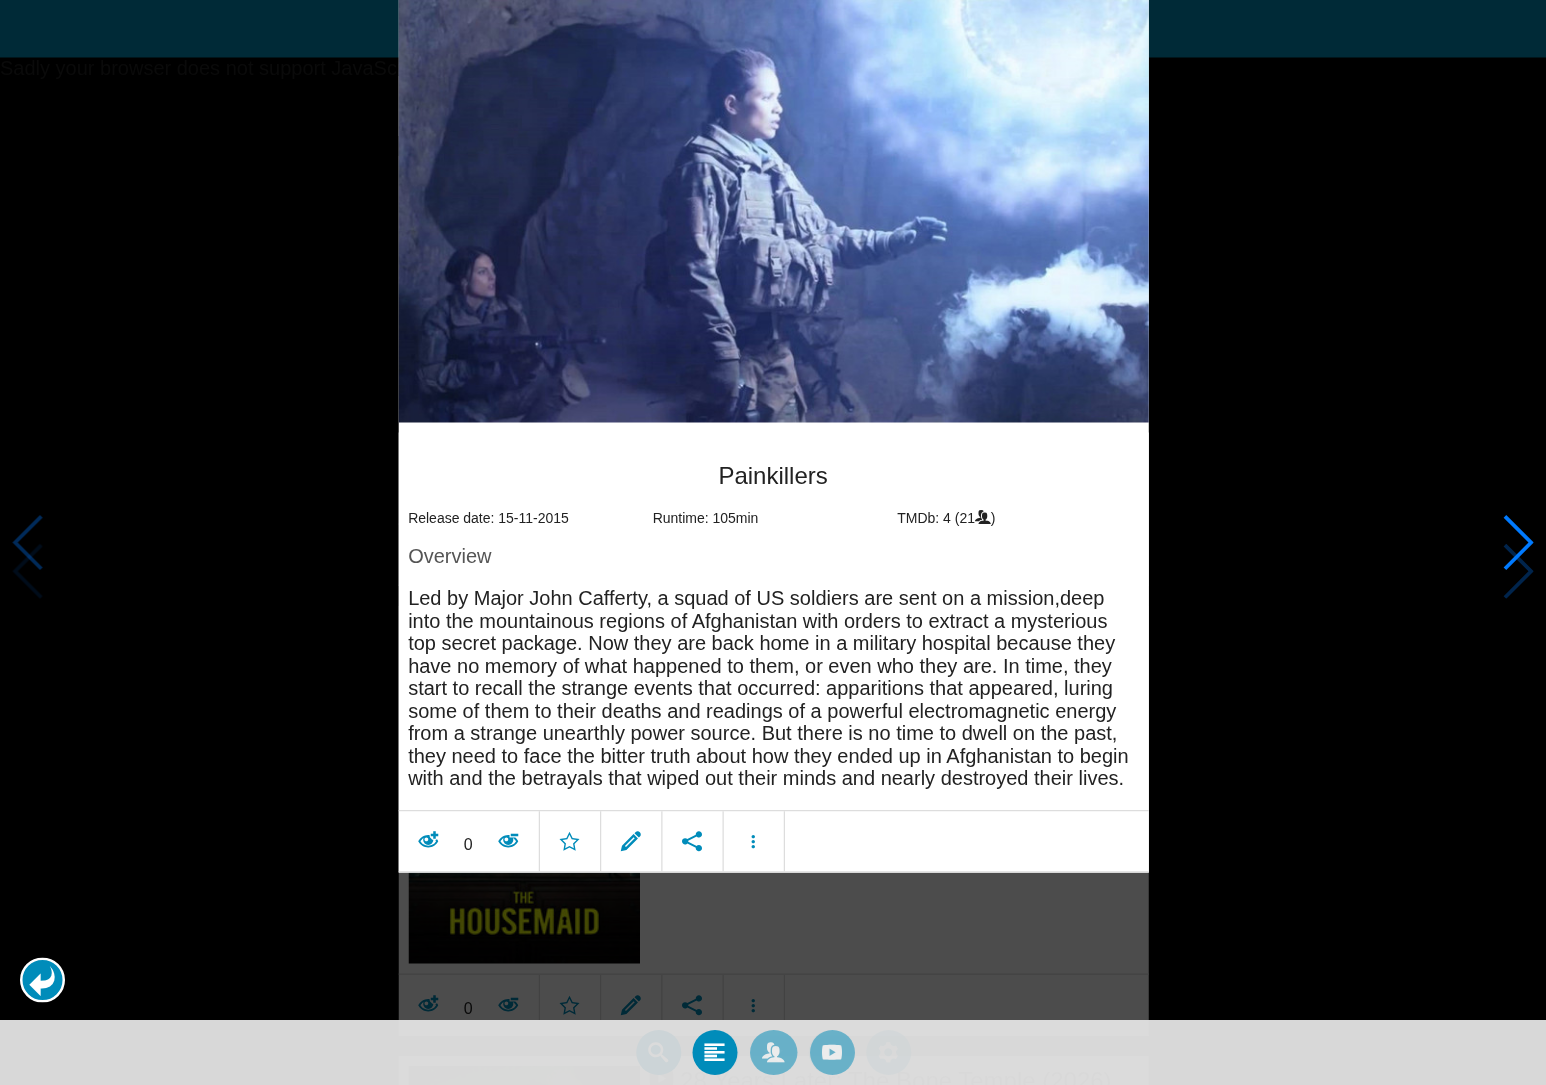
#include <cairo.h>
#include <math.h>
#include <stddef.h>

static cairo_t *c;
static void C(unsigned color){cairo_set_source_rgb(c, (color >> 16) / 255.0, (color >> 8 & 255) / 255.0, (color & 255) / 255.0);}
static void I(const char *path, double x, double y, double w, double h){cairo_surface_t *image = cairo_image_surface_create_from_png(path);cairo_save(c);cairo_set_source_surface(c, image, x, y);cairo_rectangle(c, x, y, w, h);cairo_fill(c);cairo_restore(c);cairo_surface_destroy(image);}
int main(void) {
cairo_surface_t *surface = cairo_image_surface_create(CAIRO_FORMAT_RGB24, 1546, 1085);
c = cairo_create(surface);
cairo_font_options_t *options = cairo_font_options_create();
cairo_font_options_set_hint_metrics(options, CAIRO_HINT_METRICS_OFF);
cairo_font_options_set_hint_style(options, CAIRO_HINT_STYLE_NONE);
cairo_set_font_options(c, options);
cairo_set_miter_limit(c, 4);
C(0xffffff);
cairo_paint(c);
I("1.png",0,0,1546,1085);
cairo_surface_write_to_png(surface, "o.png");
cairo_font_options_destroy(options);
cairo_destroy(c);
cairo_surface_destroy(surface);
return 0;
}
